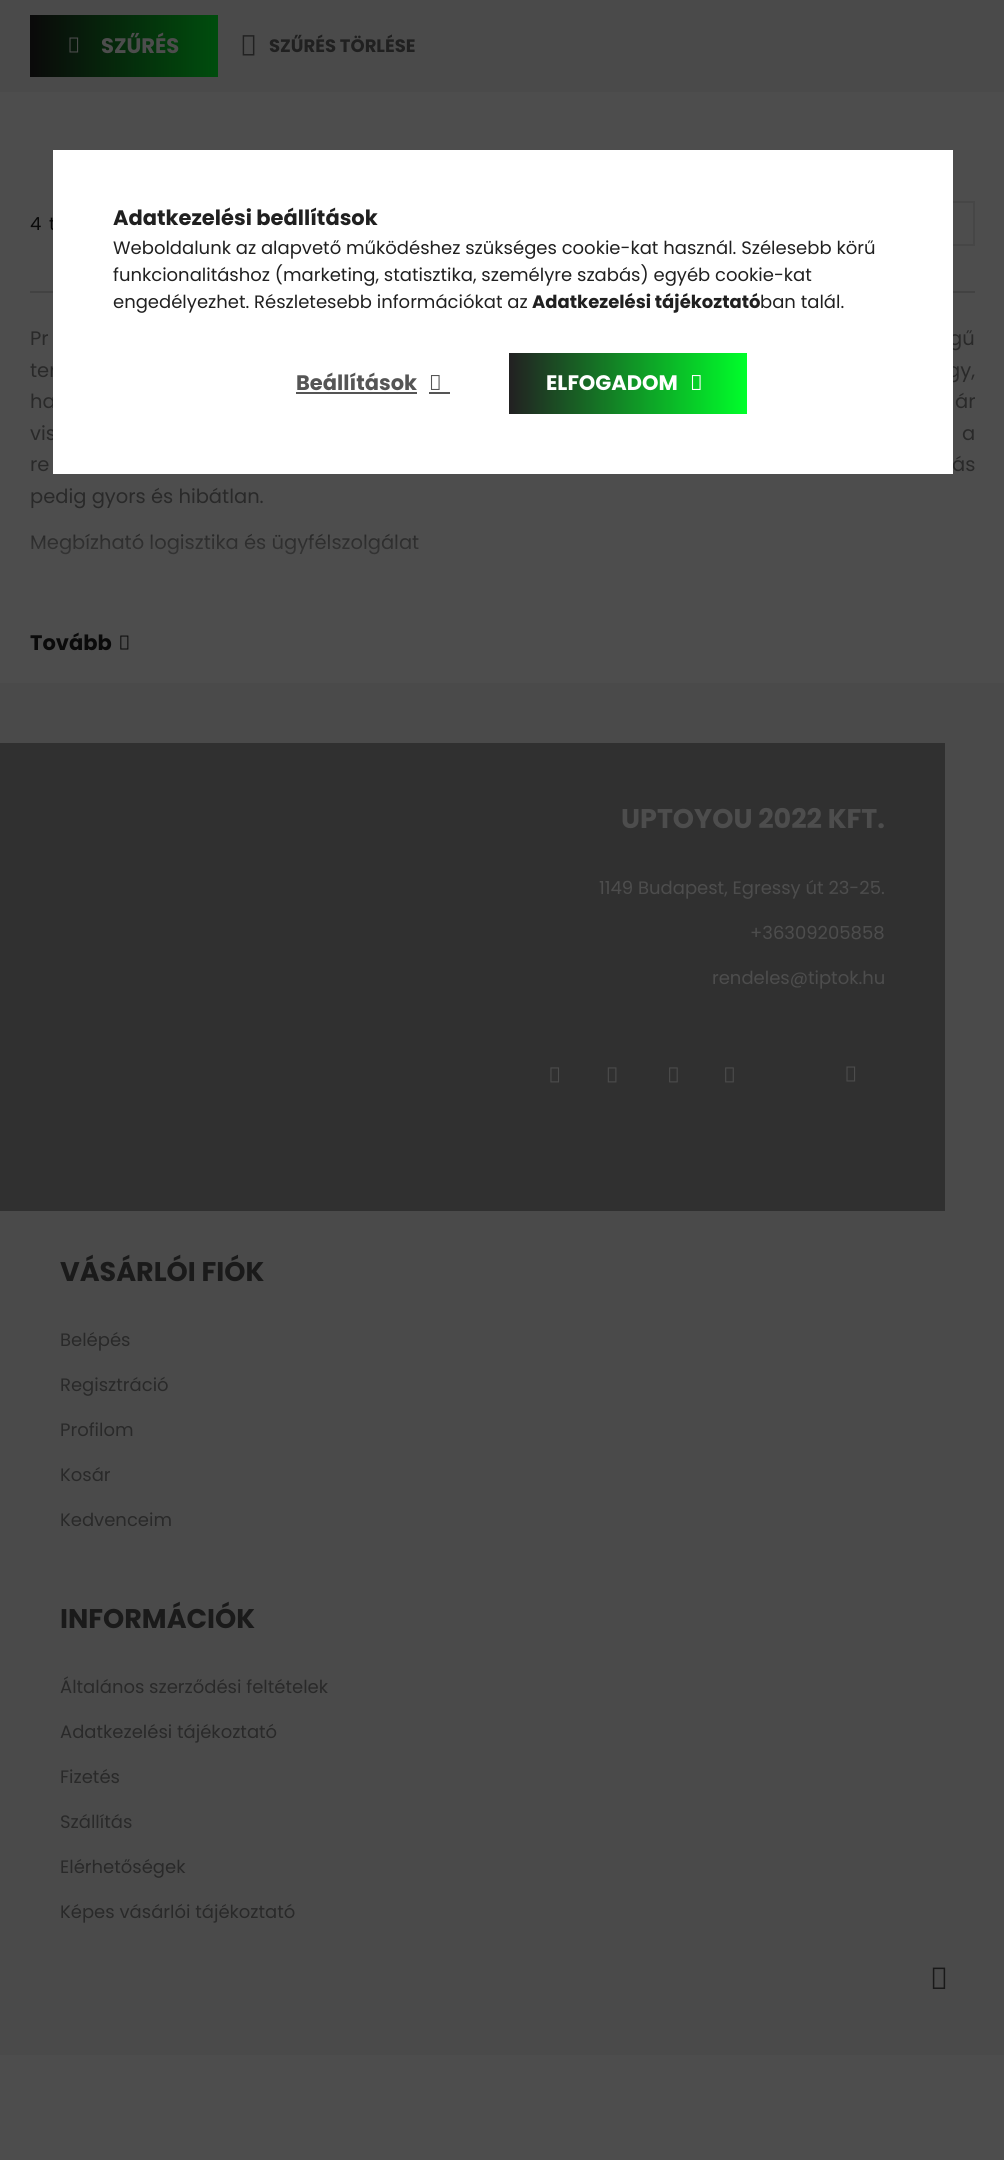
#include <cairo.h>
#include <math.h>
#include <stddef.h>

static cairo_t *c;
static void C(unsigned color){cairo_set_source_rgb(c, (color >> 16) / 255.0, (color >> 8 & 255) / 255.0, (color & 255) / 255.0);}
static void F(const char *family, double size, int italic, int bold){cairo_select_font_face(c, family, italic ? CAIRO_FONT_SLANT_ITALIC : CAIRO_FONT_SLANT_NORMAL,bold ? CAIRO_FONT_WEIGHT_BOLD : CAIRO_FONT_WEIGHT_NORMAL);cairo_set_font_size(c, size);}
static void T(double x, double y, const char *s){cairo_move_to(c, x, y);cairo_show_text(c, s);}
static void L(double x, double y, const char *s, double letter, double word){cairo_move_to(c, x, y);while (*s) {char ch[5] = {0};int n = 0;do ch[n++] = *s++; while ((*s & 0xC0) == 0x80);cairo_show_text(c, ch);cairo_rel_move_to(c, letter + word * (*ch == ' '), 0);}}
static void R(double x, double y, double w, double h){cairo_rectangle(c, x, y, w, h);cairo_fill(c);}
static void I(const char *path, double x, double y, double w, double h){cairo_surface_t *image = cairo_image_surface_create_from_png(path);cairo_save(c);cairo_set_source_surface(c, image, x, y);cairo_rectangle(c, x, y, w, h);cairo_fill(c);cairo_restore(c);cairo_surface_destroy(image);}
int main(void) {
cairo_surface_t *surface = cairo_image_surface_create(CAIRO_FORMAT_RGB24, 1004, 2160);
c = cairo_create(surface);
cairo_font_options_t *options = cairo_font_options_create();
cairo_font_options_set_hint_metrics(options, CAIRO_HINT_METRICS_OFF);
cairo_font_options_set_hint_style(options, CAIRO_HINT_STYLE_NONE);
cairo_set_font_options(c, options);
cairo_set_miter_limit(c, 4);
cairo_pattern_t *gradient;
C(0x4d4d4d);
cairo_paint(c);
C(0x4a4a4a);
R(0,0,1004,92);
gradient = cairo_pattern_create_linear(-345,46,218,46);
cairo_pattern_add_color_stop_rgba(gradient,0,0.302,0.027,0.239,1);
cairo_pattern_add_color_stop_rgba(gradient,.33,0.02,0.02,0.02,1);
cairo_pattern_add_color_stop_rgba(gradient,.67,0.039,0.039,0.039,1);
cairo_pattern_add_color_stop_rgba(gradient,1,0,0.302,0.051,1);
cairo_set_source(c,gradient);
cairo_pattern_destroy(gradient);
R(30,15,188,62);
I("1.png",69,37,10,16);
F("Poppins",21,0,1);
C(0x4d4d4d);
T(101,53,"SZŰRÉS");
I("2.png",242,35,13,21);
F("Poppins",18,0,1);
C(0x202020);
T(269,52,"SZŰRÉS TÖRLÉSE");
F("Poppins",18,0,0);
C(0x0a0a0a);
T(30,230,"4");
T(49,230,"t");
cairo_rectangle(c,781,202,193,43);
C(0x464646);
cairo_stroke(c);
C(0x424242);
R(30,291,945,2);
F("Poppins",19.5,0,0);
C(0x292929);
L(30,345,"Pr",0,7);
L(949,345,"gű",0,7);
L(30,377,"ter",0,1);
L(947,377,"gy,",0,1);
L(30,408,"ha",0,5);
L(955,408,"ár",0,5);
L(30,440,"vis",0,6);
L(962,440,"a",0,6);
L(30,471,"re",0,1);
L(952,471,"ás",0,1);
T(30,503,"pedig gyors és hibátlan.");
T(30,549,"Megbízható logisztika és ügyfélszolgálat");
gradient = cairo_pattern_create_linear(503,532,503,608);
cairo_pattern_add_color_stop_rgba(gradient,0,0.302,0.302,0.302,0);
cairo_pattern_add_color_stop_rgba(gradient,1,0.302,0.302,0.302,1);
cairo_set_source(c,gradient);
cairo_pattern_destroy(gradient);
R(31,537,388,18);
F("Poppins",21,0,1);
C(0x0a0a0a);
T(30,650,"Tovább");
I("3.png",120,635,9,15);
C(0x4a4a4a);
R(0,683,1004,1372);
C(0x303030);
R(0,743,945,468);
F("Poppins",27,0,1);
C(0x4d4d4d);
T(621,828,"UPTOYOU 2022 KFT.");
F("Poppins",18,0,0);
T(599,894,"1149 Budapest, Egressy út 23-25.");
T(750,939,"+36309205858");
T(712,984,"rendeles@tiptok.hu");
I("4.png",550,1067,10,16);
I("5.png",607,1067,10,16);
I("6.png",669,1067,9,16);
I("7.png",725,1067,9,16);
I("8.png",846,1066,10,16);
F("Poppins",27,0,1);
C(0x1a1a1a);
T(60,1281,"VÁSÁRLÓI FIÓK");
F("Poppins",18,0,0);
C(0x292929);
T(60,1346,"Belépés");
T(60,1391,"Regisztráció");
T(60,1436,"Profilom");
T(60,1481,"Kosár");
T(60,1526,"Kedvenceim");
F("Poppins",27,0,1);
C(0x1a1a1a);
T(60,1628,"INFORMÁCIÓK");
F("Poppins",18,0,0);
C(0x292929);
T(60,1693,"Általános szerződési feltételek");
T(60,1738,"Adatkezelési tájékoztató");
T(60,1783,"Fizetés");
T(60,1828,"Szállítás");
T(60,1873,"Elérhetőségek");
T(60,1918,"Képes vásárlói tájékoztató");
C(0xffffff);
R(53,150,900,324);
F("Poppins",21,0,1);
C(0x202020);
T(113,225,"Adatkezelési beállítások");
F("Poppins",18,0,0);
T(113,254,"Weboldalunk az alapvető működéshez szükséges cookie-kat használ. Szélesebb körű");
T(113,281,"funkcionalitáshoz (marketing, statisztika, személyre szabás) egyéb cookie-kat");
T(113,308,"engedélyezhet. Részletesebb információkat az");
F("Poppins",18,0,1);
T(532,308,"Adatkezelési tájékoztató");
F("Poppins",18,0,0);
T(760,308,"ban talál.");
F("Poppins",21,0,1);
C(0x555555);
T(296,390,"Beállítások");
R(296,392,121,2);
I("9.png",430,375,10,15);
R(429,392,21,2);
gradient = cairo_pattern_create_linear(32,383,747,383);
cairo_pattern_add_color_stop_rgba(gradient,0,1,0.09,0.796,1);
cairo_pattern_add_color_stop_rgba(gradient,.33,0.067,0.067,0.067,1);
cairo_pattern_add_color_stop_rgba(gradient,.67,0.133,0.133,0.133,1);
cairo_pattern_add_color_stop_rgba(gradient,1,0,1,0.165,1);
cairo_set_source(c,gradient);
cairo_pattern_destroy(gradient);
R(509,353,238,61);
C(0xffffff);
T(546,390,"ELFOGADOM");
I("10.png",691,375,10,15);
I("11.png",932,1967,14,22);
cairo_surface_write_to_png(surface, "o.png");
cairo_font_options_destroy(options);
cairo_destroy(c);
cairo_surface_destroy(surface);
return 0;
}
